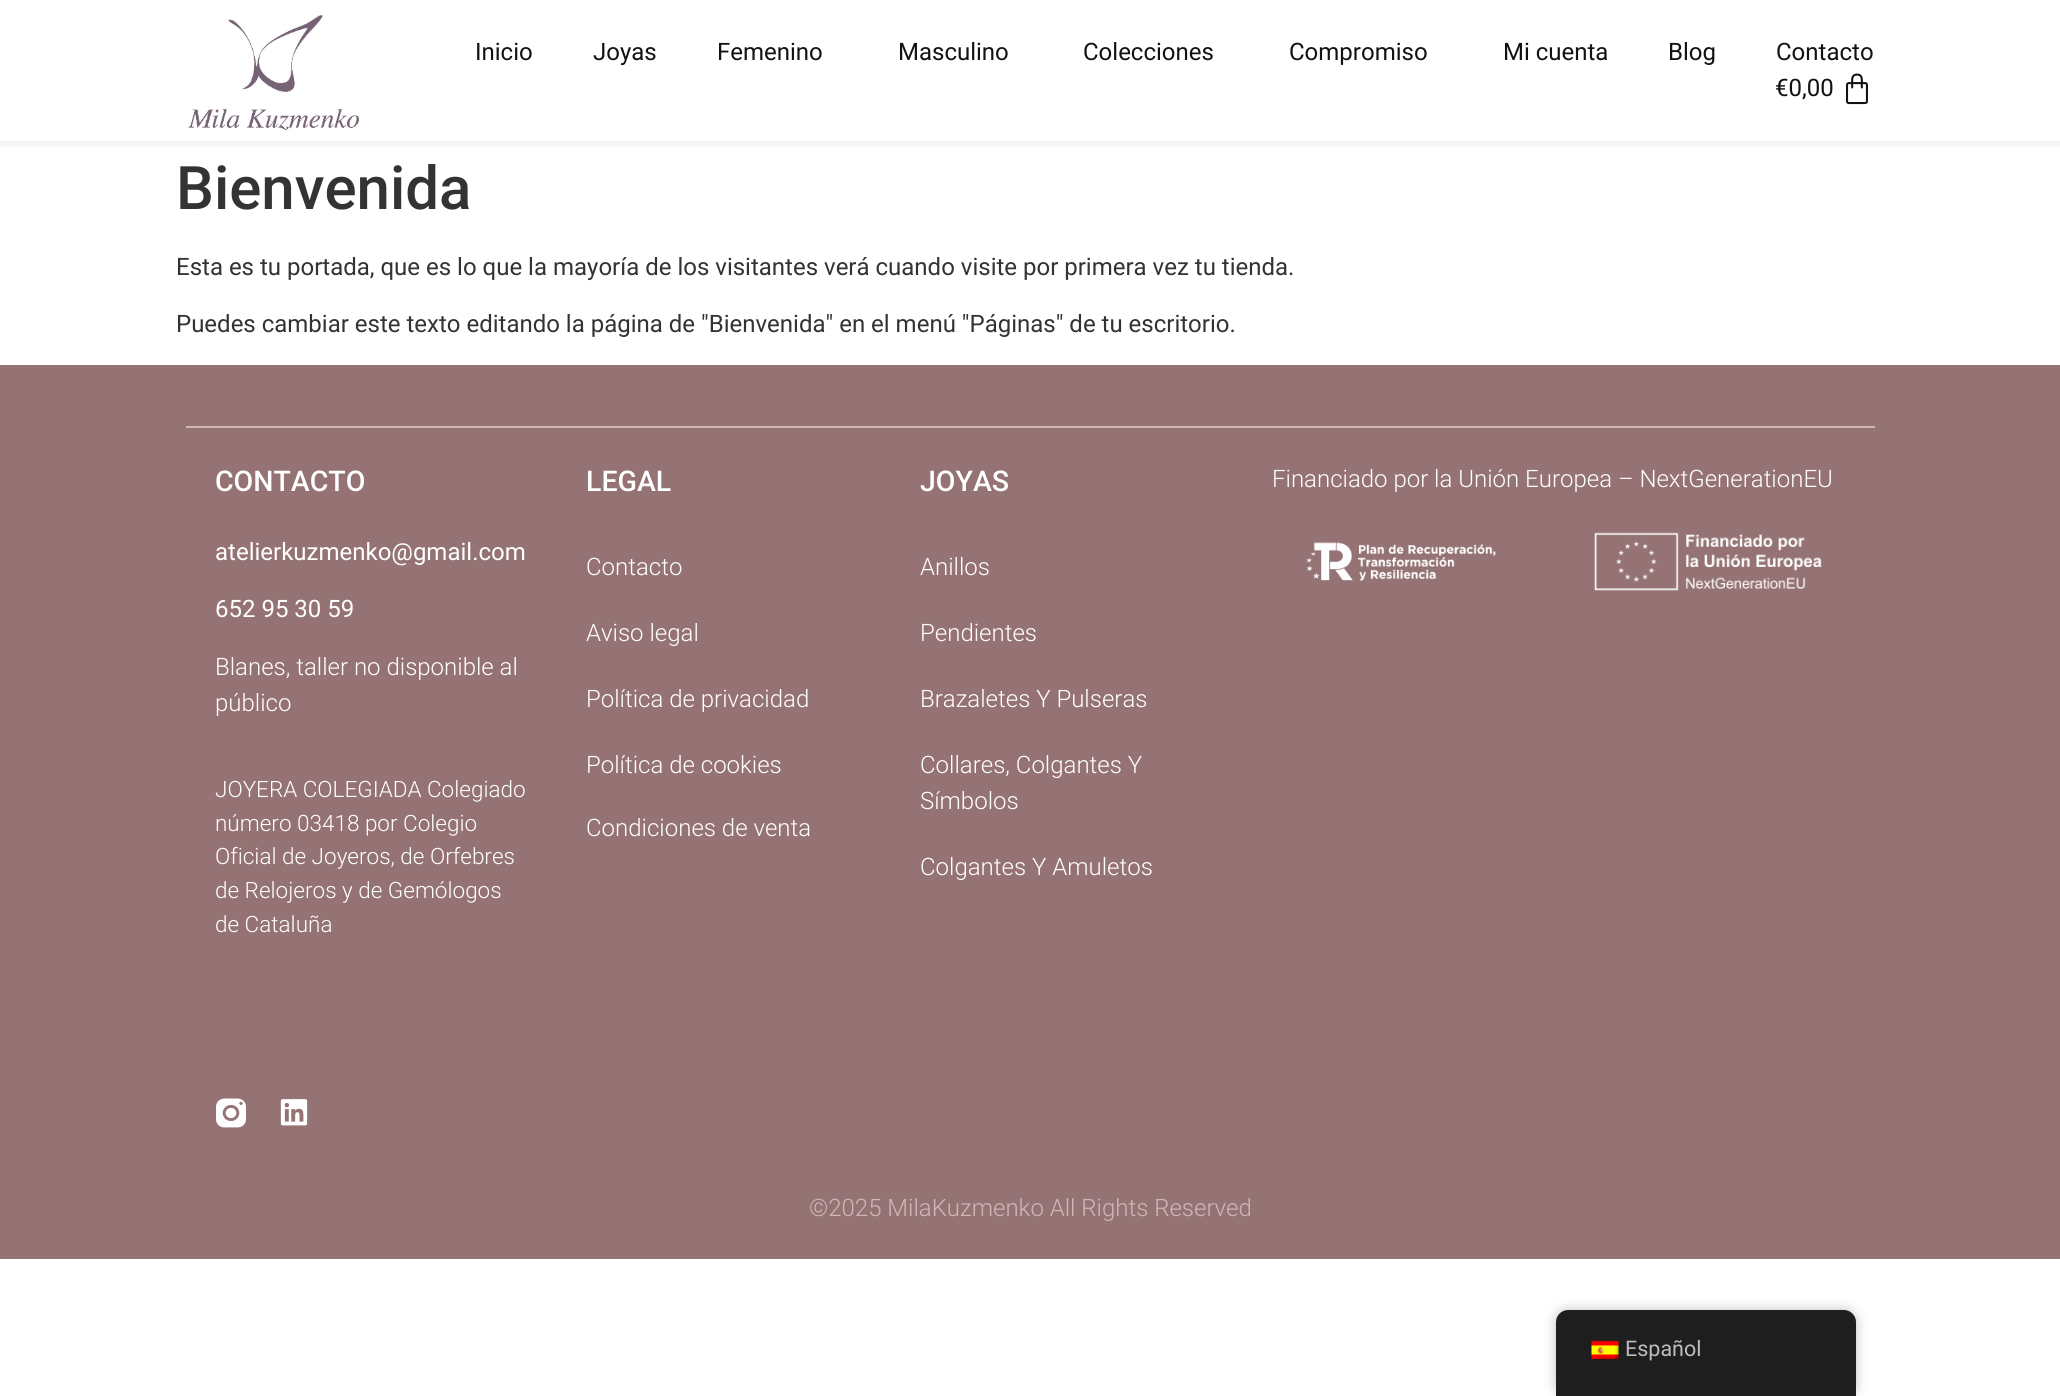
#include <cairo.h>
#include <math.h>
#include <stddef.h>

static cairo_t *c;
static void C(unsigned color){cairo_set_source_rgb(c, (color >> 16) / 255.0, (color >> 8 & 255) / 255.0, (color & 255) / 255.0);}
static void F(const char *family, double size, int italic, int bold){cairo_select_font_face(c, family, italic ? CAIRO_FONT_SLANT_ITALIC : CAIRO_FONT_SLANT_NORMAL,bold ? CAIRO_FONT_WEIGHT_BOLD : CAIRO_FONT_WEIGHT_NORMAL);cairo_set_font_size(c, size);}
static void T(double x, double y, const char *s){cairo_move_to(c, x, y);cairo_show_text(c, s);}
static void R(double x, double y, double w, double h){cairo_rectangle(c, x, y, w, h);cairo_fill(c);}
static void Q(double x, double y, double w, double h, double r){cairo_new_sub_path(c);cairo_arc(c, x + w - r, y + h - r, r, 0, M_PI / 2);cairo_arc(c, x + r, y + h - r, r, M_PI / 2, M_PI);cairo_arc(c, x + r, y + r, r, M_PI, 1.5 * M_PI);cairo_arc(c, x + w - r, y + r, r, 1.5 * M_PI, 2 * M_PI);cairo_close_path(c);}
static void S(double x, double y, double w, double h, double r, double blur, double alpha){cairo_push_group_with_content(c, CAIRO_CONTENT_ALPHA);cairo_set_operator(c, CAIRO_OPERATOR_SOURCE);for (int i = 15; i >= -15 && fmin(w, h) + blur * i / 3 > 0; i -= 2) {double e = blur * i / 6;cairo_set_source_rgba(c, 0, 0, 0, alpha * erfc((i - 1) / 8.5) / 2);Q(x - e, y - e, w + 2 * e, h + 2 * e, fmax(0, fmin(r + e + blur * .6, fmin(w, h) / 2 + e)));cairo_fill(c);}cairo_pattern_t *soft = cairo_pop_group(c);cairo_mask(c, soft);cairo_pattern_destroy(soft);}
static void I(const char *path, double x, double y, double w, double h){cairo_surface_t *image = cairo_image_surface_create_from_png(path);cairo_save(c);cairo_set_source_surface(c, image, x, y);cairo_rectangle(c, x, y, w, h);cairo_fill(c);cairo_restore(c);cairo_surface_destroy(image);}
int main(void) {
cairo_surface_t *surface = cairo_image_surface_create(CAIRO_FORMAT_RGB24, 2060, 1396);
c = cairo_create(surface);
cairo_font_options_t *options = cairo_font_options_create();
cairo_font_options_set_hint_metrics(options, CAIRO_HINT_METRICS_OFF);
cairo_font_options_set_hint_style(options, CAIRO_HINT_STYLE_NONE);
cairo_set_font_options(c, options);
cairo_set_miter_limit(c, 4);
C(0xffffff);
cairo_paint(c);
cairo_save(c);
cairo_rectangle(c,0,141,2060,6);
cairo_clip(c);
C(0x000000);
S(0,0,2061,141,0,7.5,.1);
cairo_restore(c);
I("1.png",188,15,171,115);
F("Roboto",24,0,0);
C(0x121212);
T(475,60,"Inicio");
T(593,60,"Joyas");
T(717,60,"Femenino");
T(898,60,"Masculino");
T(1083,60,"Colecciones");
T(1289,60,"Compromiso");
T(1503,60,"Mi cuenta");
T(1668,60,"Blog");
T(1776,60,"Contacto");
T(1775,96,"€0,00");
I("2.png",1846,73,22,32);
F("Roboto Medium",60,0,0);
C(0x333333);
T(176,209,"Bienvenida");
F("Roboto",24,0,0);
T(176,275,"Esta es tu portada, que es lo que la mayoría de los visitantes verá cuando visite por primera vez tu tienda.");
T(176,332,"Puedes cambiar este texto editando la página de \"Bienvenida\" en el menú \"Páginas\" de tu escritorio.");
C(0x957374);
R(0,365,2060,894);
C(0xd3b5b6);
R(186,426,1689,2);
F("Roboto Medium",28.5,0,0);
C(0xffffff);
T(215,491,"CONTACTO");
F("Roboto",24,0,0);
T(215,560,"atelierkuzmenko@gmail.com");
T(215,617,"652 95 30 59");
F("Roboto Light",24,0,0);
T(215,675,"Blanes, taller no disponible al");
T(215,711,"público");
F("Roboto Light",22.5,0,0);
T(215,797,"JOYERA COLEGIADA Colegiado");
T(215,831,"número 03418 por Colegio");
T(215,864,"Oficial de Joyeros, de Orfebres");
T(215,898,"de Relojeros y de Gemólogos");
T(215,932,"de Cataluña");
I("3.png",216,1098,30,30);
I("4.png",280,1099,28,27);
F("Roboto Medium",28.5,0,0);
T(586,491,"LEGAL");
F("Roboto Light",24,0,0);
T(586,575,"Contacto");
T(586,641,"Aviso legal");
T(586,707,"Política de privacidad");
T(586,773,"Política de cookies");
T(586,836,"Condiciones de venta");
F("Roboto Medium",28.5,0,0);
T(920,491,"JOYAS");
F("Roboto Light",24,0,0);
T(920,575,"Anillos");
T(920,641,"Pendientes");
T(920,707,"Brazaletes Y Pulseras");
T(920,773,"Collares, Colgantes Y");
T(920,809,"Símbolos");
T(920,875,"Colgantes Y Amuletos");
T(1272,487,"Financiado por la Unión Europea – NextGenerationEU");
I("5.png",1306,542,190,39);
I("6.png",1594,532,228,59);
C(0xd3b5b6);
T(809,1216,"©2025 MilaKuzmenko All Rights Reserved");
C(0x000000);
S(1556,1310,300,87,12,6,.25);
C(0x1e1e1e);
cairo_new_path(c);
cairo_move_to(c,1568,1310);
cairo_line_to(c,1844,1310);
cairo_curve_to(c,1850.5,1310,1856,1315.5,1856,1322);
cairo_line_to(c,1856,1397);
cairo_line_to(c,1556,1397);
cairo_line_to(c,1556,1322);
cairo_curve_to(c,1556,1315.5,1561.5,1310,1568,1310);
cairo_close_path(c);
cairo_fill(c);
I("7.png",1591,1340,28,19);
F("Roboto",21.5,0,0);
C(0xbdbdbd);
T(1625,1356,"Español");
cairo_surface_write_to_png(surface, "o.png");
cairo_font_options_destroy(options);
cairo_destroy(c);
cairo_surface_destroy(surface);
return 0;
}
